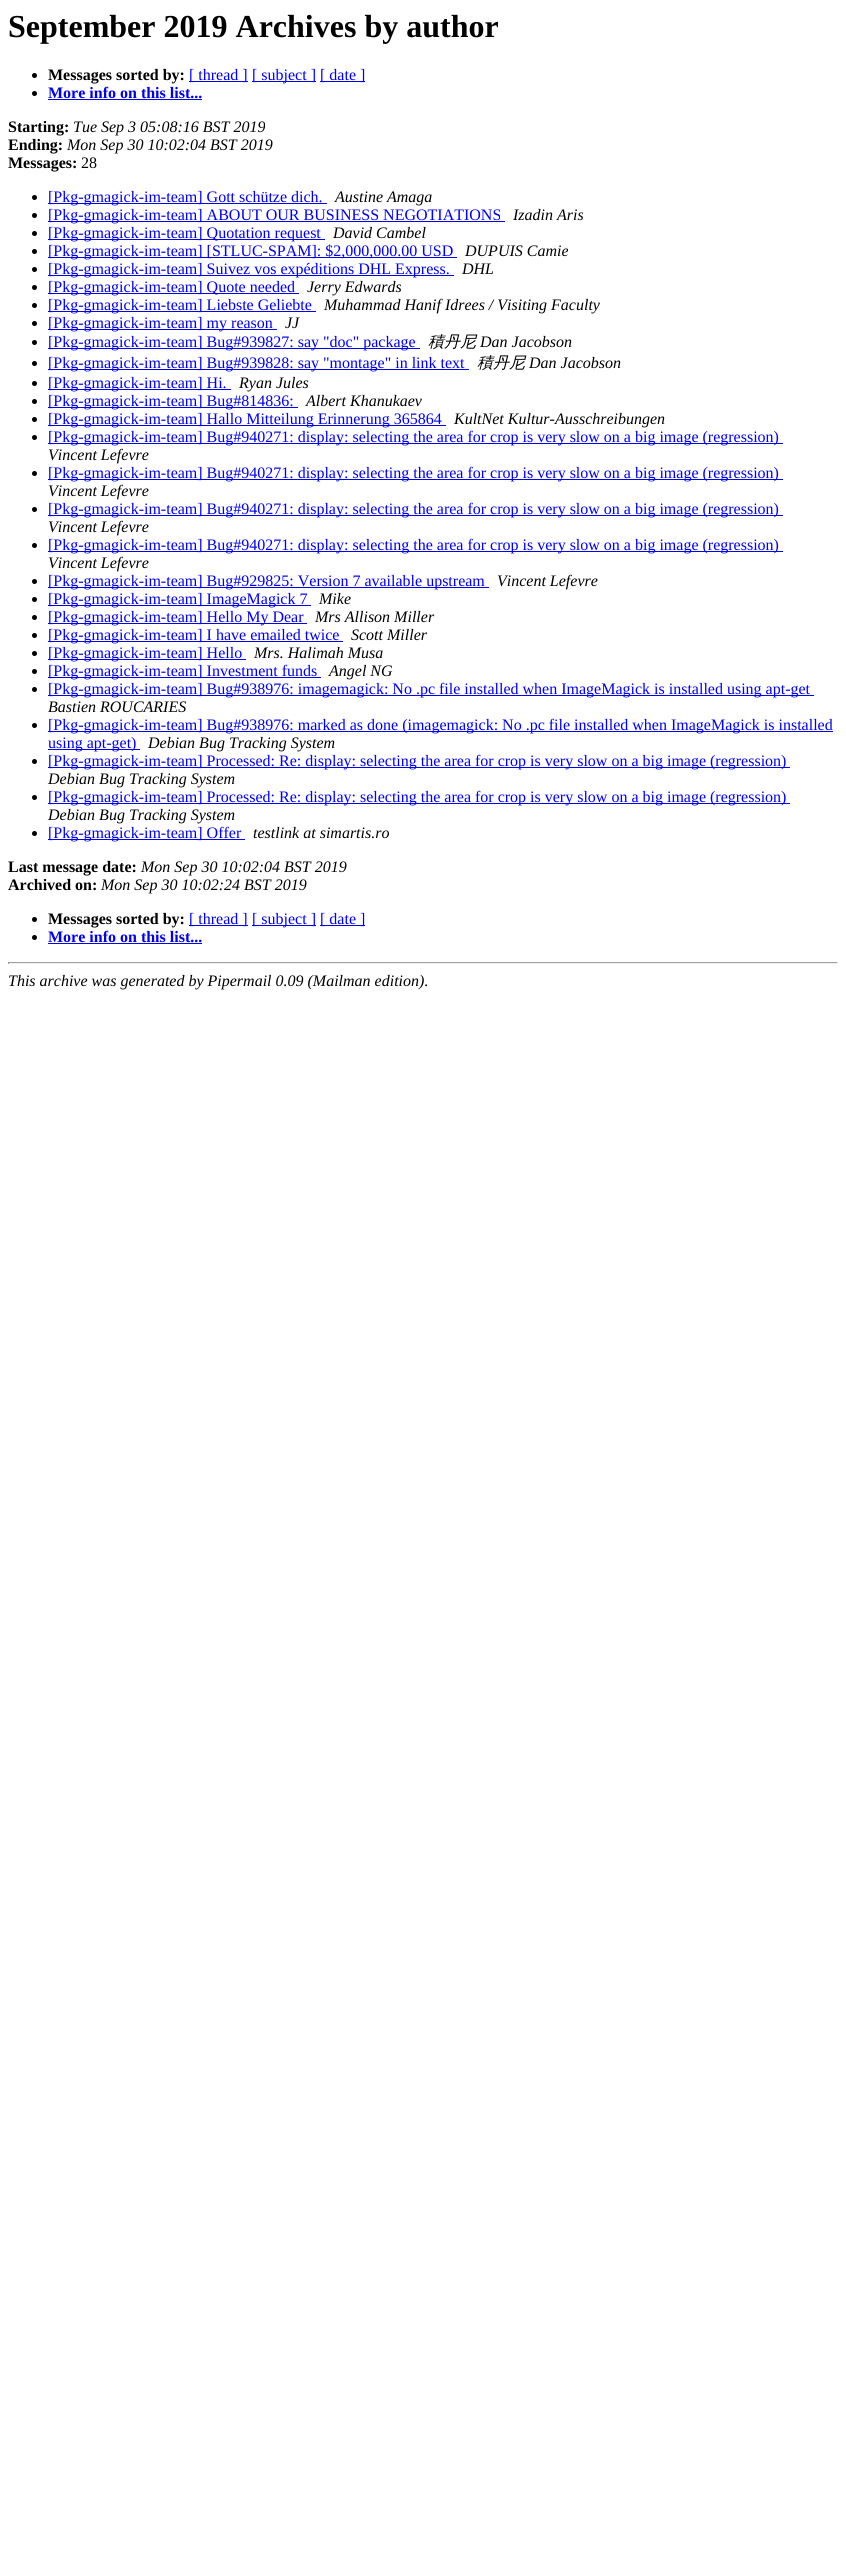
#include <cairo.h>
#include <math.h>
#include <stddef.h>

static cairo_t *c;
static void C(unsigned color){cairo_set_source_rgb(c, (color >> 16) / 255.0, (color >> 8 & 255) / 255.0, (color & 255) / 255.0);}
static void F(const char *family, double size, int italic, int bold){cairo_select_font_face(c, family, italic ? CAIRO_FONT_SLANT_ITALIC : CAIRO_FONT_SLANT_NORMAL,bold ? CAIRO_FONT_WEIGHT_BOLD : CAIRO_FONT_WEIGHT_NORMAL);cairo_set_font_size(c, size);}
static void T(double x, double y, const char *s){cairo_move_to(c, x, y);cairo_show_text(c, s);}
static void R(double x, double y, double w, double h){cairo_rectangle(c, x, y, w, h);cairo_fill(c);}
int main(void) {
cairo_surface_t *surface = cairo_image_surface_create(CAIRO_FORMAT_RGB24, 846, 2572);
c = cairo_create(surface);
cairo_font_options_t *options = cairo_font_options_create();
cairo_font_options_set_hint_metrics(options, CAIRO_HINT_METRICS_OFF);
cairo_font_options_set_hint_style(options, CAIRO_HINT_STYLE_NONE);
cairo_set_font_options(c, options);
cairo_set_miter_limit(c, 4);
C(0xffffff);
cairo_paint(c);
F("Liberation Serif",32,0,1);
C(0x000000);
T(8,37,"September 2019 Archives by author");
cairo_new_path(c);
cairo_arc(c,34.5,75.5,2.5,0,2 * M_PI);
cairo_fill(c);
F("Liberation Serif",16,0,1);
T(48,80,"Messages sorted by:");
C(0x0000ee);
R(189,81,59,1);
F("Liberation Serif",16,0,0);
T(189,80,"[ thread ]");
R(252,81,64,1);
T(252,80,"[ subject ]");
R(320,81,45,1);
T(320,80,"[ date ]");
C(0x000000);
cairo_new_path(c);
cairo_arc(c,34.5,93.5,2.5,0,2 * M_PI);
cairo_fill(c);
F("Liberation Serif",16,0,1);
C(0x0000ee);
T(48,98,"More info on this list...");
R(48,99,154,1);
C(0x000000);
T(8,132,"Starting:");
F("Liberation Serif",16,1,0);
T(73,132,"Tue Sep 3 05:08:16 BST 2019");
F("Liberation Serif",16,0,1);
T(8,150,"Ending:");
F("Liberation Serif",16,1,0);
T(67,150,"Mon Sep 30 10:02:04 BST 2019");
F("Liberation Serif",16,0,1);
T(8,168,"Messages:");
F("Liberation Serif",16,0,0);
T(81,168,"28");
cairo_new_path(c);
cairo_arc(c,34.5,197.5,2.5,0,2 * M_PI);
cairo_fill(c);
C(0x0000ee);
R(48,203,279,1);
T(48,202,"[Pkg-gmagick-im-team] Gott schütze dich.");
F("Liberation Serif",16,1,0);
C(0x000000);
T(335,202,"Austine Amaga");
cairo_new_path(c);
cairo_arc(c,34.5,215.5,2.5,0,2 * M_PI);
cairo_fill(c);
C(0x0000ee);
R(48,221,457,1);
F("Liberation Serif",16,0,0);
T(48,220,"[Pkg-gmagick-im-team] ABOUT OUR BUSINESS NEGOTIATIONS");
F("Liberation Serif",16,1,0);
C(0x000000);
T(513,220,"Izadin Aris");
cairo_new_path(c);
cairo_arc(c,34.5,233.5,2.5,0,2 * M_PI);
cairo_fill(c);
C(0x0000ee);
R(48,239,277,1);
F("Liberation Serif",16,0,0);
T(48,238,"[Pkg-gmagick-im-team] Quotation request");
F("Liberation Serif",16,1,0);
C(0x000000);
T(333,238,"David Cambel");
cairo_new_path(c);
cairo_arc(c,34.5,251.5,2.5,0,2 * M_PI);
cairo_fill(c);
C(0x0000ee);
R(48,257,409,1);
F("Liberation Serif",16,0,0);
T(48,256,"[Pkg-gmagick-im-team] [STLUC-SPAM]: $2,000,000.00 USD");
F("Liberation Serif",16,1,0);
C(0x000000);
T(465,256,"DUPUIS Camie");
cairo_new_path(c);
cairo_arc(c,34.5,269.5,2.5,0,2 * M_PI);
cairo_fill(c);
C(0x0000ee);
R(48,275,406,1);
F("Liberation Serif",16,0,0);
T(48,274,"[Pkg-gmagick-im-team] Suivez vos expéditions DHL Express.");
F("Liberation Serif",16,1,0);
C(0x000000);
T(462,274,"DHL");
cairo_new_path(c);
cairo_arc(c,34.5,287.5,2.5,0,2 * M_PI);
cairo_fill(c);
C(0x0000ee);
R(48,293,251,1);
F("Liberation Serif",16,0,0);
T(48,292,"[Pkg-gmagick-im-team] Quote needed");
F("Liberation Serif",16,1,0);
C(0x000000);
T(307,292,"Jerry Edwards");
cairo_new_path(c);
cairo_arc(c,34.5,305.5,2.5,0,2 * M_PI);
cairo_fill(c);
C(0x0000ee);
R(48,311,268,1);
F("Liberation Serif",16,0,0);
T(48,310,"[Pkg-gmagick-im-team] Liebste Geliebte");
F("Liberation Serif",16,1,0);
C(0x000000);
T(324,310,"Muhammad Hanif Idrees / Visiting Faculty");
cairo_new_path(c);
cairo_arc(c,34.5,323.5,2.5,0,2 * M_PI);
cairo_fill(c);
C(0x0000ee);
R(48,329,229,1);
F("Liberation Serif",16,0,0);
T(48,328,"[Pkg-gmagick-im-team] my reason");
F("Liberation Serif",16,1,0);
C(0x000000);
T(285,328,"JJ");
cairo_new_path(c);
cairo_arc(c,34.5,342.5,2.5,0,2 * M_PI);
cairo_fill(c);
C(0x0000ee);
R(48,348,372,1);
F("Liberation Serif",16,0,0);
T(48,347,"[Pkg-gmagick-im-team] Bug#939827: say \"doc\" package");
F("WenQuanYi Zen Hei Medium",16,1,0);
C(0x000000);
T(428,347,"積丹尼");
F("Liberation Serif",16,1,0);
T(480,347,"Dan Jacobson");
cairo_new_path(c);
cairo_arc(c,34.5,363.5,2.5,0,2 * M_PI);
cairo_fill(c);
C(0x0000ee);
R(48,369,421,1);
F("Liberation Serif",16,0,0);
T(48,368,"[Pkg-gmagick-im-team] Bug#939828: say \"montage\" in link text");
F("WenQuanYi Zen Hei Medium",16,1,0);
C(0x000000);
T(477,368,"積丹尼");
F("Liberation Serif",16,1,0);
T(529,368,"Dan Jacobson");
cairo_new_path(c);
cairo_arc(c,34.5,383.5,2.5,0,2 * M_PI);
cairo_fill(c);
C(0x0000ee);
R(48,389,183,1);
F("Liberation Serif",16,0,0);
T(48,388,"[Pkg-gmagick-im-team] Hi.");
F("Liberation Serif",16,1,0);
C(0x000000);
T(239,388,"Ryan Jules");
cairo_new_path(c);
cairo_arc(c,34.5,401.5,2.5,0,2 * M_PI);
cairo_fill(c);
C(0x0000ee);
R(48,407,250,1);
F("Liberation Serif",16,0,0);
T(48,406,"[Pkg-gmagick-im-team] Bug#814836:");
F("Liberation Serif",16,1,0);
C(0x000000);
T(306,406,"Albert Khanukaev");
cairo_new_path(c);
cairo_arc(c,34.5,419.5,2.5,0,2 * M_PI);
cairo_fill(c);
C(0x0000ee);
R(48,425,398,1);
F("Liberation Serif",16,0,0);
T(48,424,"[Pkg-gmagick-im-team] Hallo Mitteilung Erinnerung 365864");
F("Liberation Serif",16,1,0);
C(0x000000);
T(454,424,"KultNet Kultur-Ausschreibungen");
cairo_new_path(c);
cairo_arc(c,34.5,437.5,2.5,0,2 * M_PI);
cairo_fill(c);
C(0x0000ee);
R(48,443,735,1);
F("Liberation Serif",16,0,0);
T(48,442,"[Pkg-gmagick-im-team] Bug#940271: display: selecting the area for crop is very slow on a big image (regression)");
F("Liberation Serif",16,1,0);
C(0x000000);
T(48,460,"Vincent Lefevre");
cairo_new_path(c);
cairo_arc(c,34.5,473.5,2.5,0,2 * M_PI);
cairo_fill(c);
C(0x0000ee);
R(48,479,735,1);
F("Liberation Serif",16,0,0);
T(48,478,"[Pkg-gmagick-im-team] Bug#940271: display: selecting the area for crop is very slow on a big image (regression)");
F("Liberation Serif",16,1,0);
C(0x000000);
T(48,496,"Vincent Lefevre");
cairo_new_path(c);
cairo_arc(c,34.5,509.5,2.5,0,2 * M_PI);
cairo_fill(c);
C(0x0000ee);
R(48,515,735,1);
F("Liberation Serif",16,0,0);
T(48,514,"[Pkg-gmagick-im-team] Bug#940271: display: selecting the area for crop is very slow on a big image (regression)");
F("Liberation Serif",16,1,0);
C(0x000000);
T(48,532,"Vincent Lefevre");
cairo_new_path(c);
cairo_arc(c,34.5,545.5,2.5,0,2 * M_PI);
cairo_fill(c);
C(0x0000ee);
R(48,551,735,1);
F("Liberation Serif",16,0,0);
T(48,550,"[Pkg-gmagick-im-team] Bug#940271: display: selecting the area for crop is very slow on a big image (regression)");
F("Liberation Serif",16,1,0);
C(0x000000);
T(48,568,"Vincent Lefevre");
cairo_new_path(c);
cairo_arc(c,34.5,581.5,2.5,0,2 * M_PI);
cairo_fill(c);
C(0x0000ee);
R(48,587,441,1);
F("Liberation Serif",16,0,0);
T(48,586,"[Pkg-gmagick-im-team] Bug#929825: Version 7 available upstream");
F("Liberation Serif",16,1,0);
C(0x000000);
T(497,586,"Vincent Lefevre");
cairo_new_path(c);
cairo_arc(c,34.5,599.5,2.5,0,2 * M_PI);
cairo_fill(c);
C(0x0000ee);
R(48,605,263,1);
F("Liberation Serif",16,0,0);
T(48,604,"[Pkg-gmagick-im-team] ImageMagick 7");
F("Liberation Serif",16,1,0);
C(0x000000);
T(319,604,"Mike");
cairo_new_path(c);
cairo_arc(c,34.5,617.5,2.5,0,2 * M_PI);
cairo_fill(c);
C(0x0000ee);
R(48,623,259,1);
F("Liberation Serif",16,0,0);
T(48,622,"[Pkg-gmagick-im-team] Hello My Dear");
F("Liberation Serif",16,1,0);
C(0x000000);
T(315,622,"Mrs Allison Miller");
cairo_new_path(c);
cairo_arc(c,34.5,635.5,2.5,0,2 * M_PI);
cairo_fill(c);
C(0x0000ee);
R(48,641,295,1);
F("Liberation Serif",16,0,0);
T(48,640,"[Pkg-gmagick-im-team] I have emailed twice");
F("Liberation Serif",16,1,0);
C(0x000000);
T(351,640,"Scott Miller");
cairo_new_path(c);
cairo_arc(c,34.5,653.5,2.5,0,2 * M_PI);
cairo_fill(c);
C(0x0000ee);
R(48,659,198,1);
F("Liberation Serif",16,0,0);
T(48,658,"[Pkg-gmagick-im-team] Hello");
F("Liberation Serif",16,1,0);
C(0x000000);
T(254,658,"Mrs. Halimah Musa");
cairo_new_path(c);
cairo_arc(c,34.5,671.5,2.5,0,2 * M_PI);
cairo_fill(c);
C(0x0000ee);
R(48,677,273,1);
F("Liberation Serif",16,0,0);
T(48,676,"[Pkg-gmagick-im-team] Investment funds");
F("Liberation Serif",16,1,0);
C(0x000000);
T(329,676,"Angel NG");
cairo_new_path(c);
cairo_arc(c,34.5,689.5,2.5,0,2 * M_PI);
cairo_fill(c);
C(0x0000ee);
R(48,695,766,1);
F("Liberation Serif",16,0,0);
T(48,694,"[Pkg-gmagick-im-team] Bug#938976: imagemagick: No .pc file installed when ImageMagick is installed using apt-get");
F("Liberation Serif",16,1,0);
C(0x000000);
T(48,712,"Bastien ROUCARIES");
cairo_new_path(c);
cairo_arc(c,34.5,725.5,2.5,0,2 * M_PI);
cairo_fill(c);
C(0x0000ee);
R(48,731,785,1);
F("Liberation Serif",16,0,0);
T(48,730,"[Pkg-gmagick-im-team] Bug#938976: marked as done (imagemagick: No .pc file installed when ImageMagick is installed");
R(48,749,92,1);
T(48,748,"using apt-get)");
F("Liberation Serif",16,1,0);
C(0x000000);
T(148,748,"Debian Bug Tracking System");
cairo_new_path(c);
cairo_arc(c,34.5,761.5,2.5,0,2 * M_PI);
cairo_fill(c);
C(0x0000ee);
R(48,767,742,1);
F("Liberation Serif",16,0,0);
T(48,766,"[Pkg-gmagick-im-team] Processed: Re: display: selecting the area for crop is very slow on a big image (regression)");
F("Liberation Serif",16,1,0);
C(0x000000);
T(48,784,"Debian Bug Tracking System");
cairo_new_path(c);
cairo_arc(c,34.5,797.5,2.5,0,2 * M_PI);
cairo_fill(c);
C(0x0000ee);
R(48,803,742,1);
F("Liberation Serif",16,0,0);
T(48,802,"[Pkg-gmagick-im-team] Processed: Re: display: selecting the area for crop is very slow on a big image (regression)");
F("Liberation Serif",16,1,0);
C(0x000000);
T(48,820,"Debian Bug Tracking System");
cairo_new_path(c);
cairo_arc(c,34.5,833.5,2.5,0,2 * M_PI);
cairo_fill(c);
C(0x0000ee);
R(48,839,197,1);
F("Liberation Serif",16,0,0);
T(48,838,"[Pkg-gmagick-im-team] Offer");
F("Liberation Serif",16,1,0);
C(0x000000);
T(253,838,"testlink at simartis.ro");
F("Liberation Serif",16,0,1);
T(8,872,"Last message date:");
F("Liberation Serif",16,1,0);
T(141,872,"Mon Sep 30 10:02:04 BST 2019");
F("Liberation Serif",16,0,1);
T(8,890,"Archived on:");
F("Liberation Serif",16,1,0);
T(101,890,"Mon Sep 30 10:02:24 BST 2019");
cairo_new_path(c);
cairo_arc(c,34.5,919.5,2.5,0,2 * M_PI);
cairo_fill(c);
F("Liberation Serif",16,0,1);
T(48,924,"Messages sorted by:");
C(0x0000ee);
R(189,925,59,1);
F("Liberation Serif",16,0,0);
T(189,924,"[ thread ]");
R(252,925,64,1);
T(252,924,"[ subject ]");
R(320,925,45,1);
T(320,924,"[ date ]");
C(0x000000);
cairo_new_path(c);
cairo_arc(c,34.5,937.5,2.5,0,2 * M_PI);
cairo_fill(c);
F("Liberation Serif",16,0,1);
C(0x0000ee);
T(48,942,"More info on this list...");
R(48,943,154,1);
C(0x9f9f9f);
R(8,962,830,1);
C(0xeeeeee);
R(837,962,1,2);
R(8,963,830,1);
C(0x9f9f9f);
R(8,962,1,2);
F("Liberation Serif",16,1,0);
C(0x000000);
T(8,986,"This archive was generated by Pipermail 0.09 (Mailman edition).");
cairo_surface_write_to_png(surface, "o.png");
cairo_font_options_destroy(options);
cairo_destroy(c);
cairo_surface_destroy(surface);
return 0;
}
